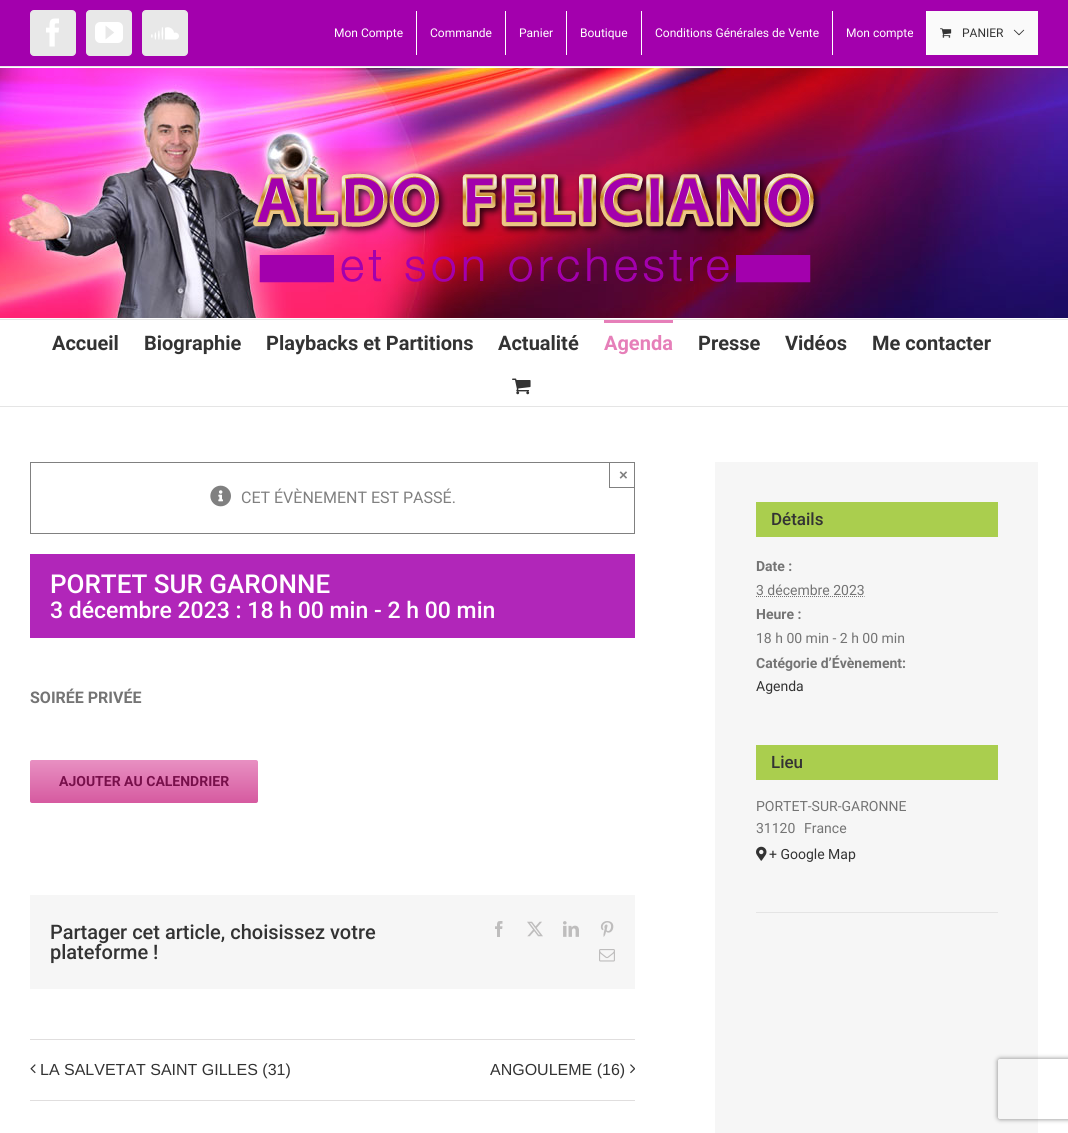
#include <cairo.h>
#include <math.h>
#include <stddef.h>

static cairo_t *c;
static void C(unsigned color){cairo_set_source_rgb(c, (color >> 16) / 255.0, (color >> 8 & 255) / 255.0, (color & 255) / 255.0);}
static void F(const char *family, double size, int italic, int bold){cairo_select_font_face(c, family, italic ? CAIRO_FONT_SLANT_ITALIC : CAIRO_FONT_SLANT_NORMAL,bold ? CAIRO_FONT_WEIGHT_BOLD : CAIRO_FONT_WEIGHT_NORMAL);cairo_set_font_size(c, size);}
static void T(double x, double y, const char *s){cairo_move_to(c, x, y);cairo_show_text(c, s);}
static void R(double x, double y, double w, double h){cairo_rectangle(c, x, y, w, h);cairo_fill(c);}
static void Q(double x, double y, double w, double h, double r){cairo_new_sub_path(c);cairo_arc(c, x + w - r, y + h - r, r, 0, M_PI / 2);cairo_arc(c, x + r, y + h - r, r, M_PI / 2, M_PI);cairo_arc(c, x + r, y + r, r, M_PI, 1.5 * M_PI);cairo_arc(c, x + w - r, y + r, r, 1.5 * M_PI, 2 * M_PI);cairo_close_path(c);}
static void S(double x, double y, double w, double h, double r, double blur, double alpha){cairo_push_group_with_content(c, CAIRO_CONTENT_ALPHA);cairo_set_operator(c, CAIRO_OPERATOR_SOURCE);for (int i = 15; i >= -15 && fmin(w, h) + blur * i / 3 > 0; i -= 2) {double e = blur * i / 6;cairo_set_source_rgba(c, 0, 0, 0, alpha * erfc((i - 1) / 8.5) / 2);Q(x - e, y - e, w + 2 * e, h + 2 * e, fmax(0, fmin(r + e + blur * .6, fmin(w, h) / 2 + e)));cairo_fill(c);}cairo_pattern_t *soft = cairo_pop_group(c);cairo_mask(c, soft);cairo_pattern_destroy(soft);}
static void I(const char *path, double x, double y, double w, double h){cairo_surface_t *image = cairo_image_surface_create_from_png(path);cairo_save(c);cairo_set_source_surface(c, image, x, y);cairo_rectangle(c, x, y, w, h);cairo_fill(c);cairo_restore(c);cairo_surface_destroy(image);}
int main(void) {
cairo_surface_t *surface = cairo_image_surface_create(CAIRO_FORMAT_RGB24, 1068, 1133);
c = cairo_create(surface);
cairo_font_options_t *options = cairo_font_options_create();
cairo_font_options_set_hint_metrics(options, CAIRO_HINT_METRICS_OFF);
cairo_font_options_set_hint_style(options, CAIRO_HINT_STYLE_NONE);
cairo_set_font_options(c, options);
cairo_set_miter_limit(c, 4);
cairo_pattern_t *gradient;
C(0xffffff);
cairo_paint(c);
C(0xa300ad);
R(0,0,1068,66);
C(0xe5e5e5);
R(0,66,1068,1);
C(0xe8e8e8);
Q(30.5,10.5,45,45,3.5);
cairo_fill_preserve(c);
cairo_set_line_width(c,1);
cairo_stroke(c);
I("1.png",46,18,13,29);
Q(86.5,10.5,45,45,3.5);
cairo_fill_preserve(c);
cairo_stroke(c);
I("2.png",95,22,28,21);
Q(142.5,10.5,45,45,3.5);
cairo_fill_preserve(c);
cairo_stroke(c);
I("3.png",151,27,28,13);
F("Roboto",12,0,0);
C(0xffffff);
T(334,37,"Mon Compte");
R(416,11,1,44);
T(430,37,"Commande");
R(505,11,1,44);
T(519,37,"Panier");
R(566,11,1,44);
T(580,37,"Boutique");
R(641,11,1,44);
T(655,37,"Conditions Générales de Vente");
R(832,11,1,44);
T(846,37,"Mon compte");
R(926,11,1,44);
C(0xfafafa);
R(927,11,111,44);
I("4.png",940,28,12,10);
C(0x333333);
T(962,37,"PANIER");
I("5.png",1013,29,12,7);
I("6.png",0,68,1068,250);
C(0xe5e5e5);
R(0,319,1068,1);
I("7.png",251,171,570,112);
R(0,406,1068,1);
F("Roboto",20,0,1);
C(0x333333);
T(52,350,"Accueil");
T(144,350,"Biographie");
T(266,350,"Playbacks et Partitions");
T(498,350,"Actualité");
C(0xe67fb9);
R(604,320,69,3);
T(604,350,"Agenda");
C(0x333333);
T(698,350,"Presse");
T(785,350,"Vidéos");
T(872,350,"Me contacter");
I("8.png",512,378,19,17);
cairo_rectangle(c,30.5,462.5,604,71);
C(0x808080);
cairo_stroke(c);
R(609,487,26,1);
R(609,462,1,26);
F("Liberation Sans",15,0,1);
T(619,480,"×");
I("9.png",210,485,21,22);
F("Roboto",16,0,0);
T(241,503,"CET ÉVÈNEMENT EST PASSÉ.");
C(0xb126b9);
R(30,554,605,84);
F("Roboto Medium",26,0,0);
C(0xffffff);
T(50,593,"PORTET SUR GARONNE");
F("Roboto Medium",23,0,0);
T(50,618,"3 décembre 2023 : 18 h 00 min - 2 h 00 min");
F("Roboto",16,0,1);
C(0x747474);
T(30,703,"SOIRÉE PRIVÉE");
gradient = cairo_pattern_create_linear(144,760,144,803);
cairo_pattern_add_color_stop_rgba(gradient,0,0.91,0.565,0.761,1);
cairo_pattern_add_color_stop_rgba(gradient,1,0.839,0.353,0.627,1);
cairo_set_source(c,gradient);
cairo_pattern_destroy(gradient);
Q(30,760,228,43,2);
cairo_fill(c);
F("Roboto",14,0,1);
C(0x78104b);
T(59,786,"AJOUTER AU CALENDRIER");
C(0xf6f6f6);
R(30,895,605,94);
F("Roboto Medium",20,0,0);
C(0x333333);
T(50,939,"Partager cet article, choisissez votre");
T(50,959,"plateforme !");
I("10.png",495,921,8,16);
I("11.png",527,921,16,16);
I("12.png",563,921,16,16);
I("13.png",600,921,14,16);
I("14.png",599,949,16,13);
C(0xe0dede);
R(30,1039,605,1);
R(30,1100,605,1);
I("15.png",30,1064,6,10);
F("Liberation Sans",16,0,0);
C(0x333333);
T(40,1075,"LA SALVETAT SAINT GILLES (31)");
T(490,1075,"ANGOULEME (16)");
I("16.png",630,1064,5,10);
C(0xf6f6f6);
R(715,462,323,671);
C(0xaace4e);
R(756,502,242,35);
F("Roboto Medium",17,0,0);
C(0x333333);
T(771,525,"Détails");
F("Roboto",14,0,1);
C(0x747474);
T(756,571,"Date :");
F("Roboto",14,0,0);
T(756,595,"3 décembre 2023");
cairo_new_path(c);
cairo_move_to(c,756,596.5);
cairo_line_to(c,864.5,596.5);
cairo_set_dash(c,(double[]){1,1},2,0);
cairo_stroke(c);
F("Roboto",14,0,1);
T(756,619,"Heure :");
F("Roboto",14,0,0);
T(756,643,"18 h 00 min - 2 h 00 min");
F("Roboto",14,0,1);
T(756,668,"Catégorie d’Évènement:");
F("Roboto",14,0,0);
C(0x333333);
T(756,691,"Agenda");
C(0xaace4e);
R(756,745,242,35);
F("Roboto Medium",17,0,0);
C(0x333333);
T(771,768,"Lieu");
F("Roboto",14,0,0);
C(0x747474);
T(756,811,"PORTET-SUR-GARONNE");
T(756,833,"31120");
T(804,833,"France");
I("17.png",756,846,11,15);
C(0x333333);
T(769,859,"+ Google Map");
C(0xe4e4e4);
R(756,912,242,1);
cairo_save(c);
cairo_set_fill_rule(c,CAIRO_FILL_RULE_EVEN_ODD);
cairo_new_path(c);
cairo_move_to(c,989,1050);
cairo_line_to(c,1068,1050);
cairo_line_to(c,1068,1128);
cairo_line_to(c,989,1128);
cairo_close_path(c);
cairo_move_to(c,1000,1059);
cairo_line_to(c,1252,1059);
cairo_curve_to(c,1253,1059,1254,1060,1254,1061);
cairo_line_to(c,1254,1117);
cairo_curve_to(c,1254,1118,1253,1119,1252,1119);
cairo_line_to(c,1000,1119);
cairo_curve_to(c,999,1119,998,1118,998,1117);
cairo_line_to(c,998,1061);
cairo_curve_to(c,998,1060,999,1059,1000,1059);
cairo_close_path(c);
cairo_clip(c);
C(0x808080);
S(998,1059,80,60,2,2.5,1);
cairo_restore(c);
cairo_surface_write_to_png(surface, "o.png");
cairo_font_options_destroy(options);
cairo_destroy(c);
cairo_surface_destroy(surface);
return 0;
}
